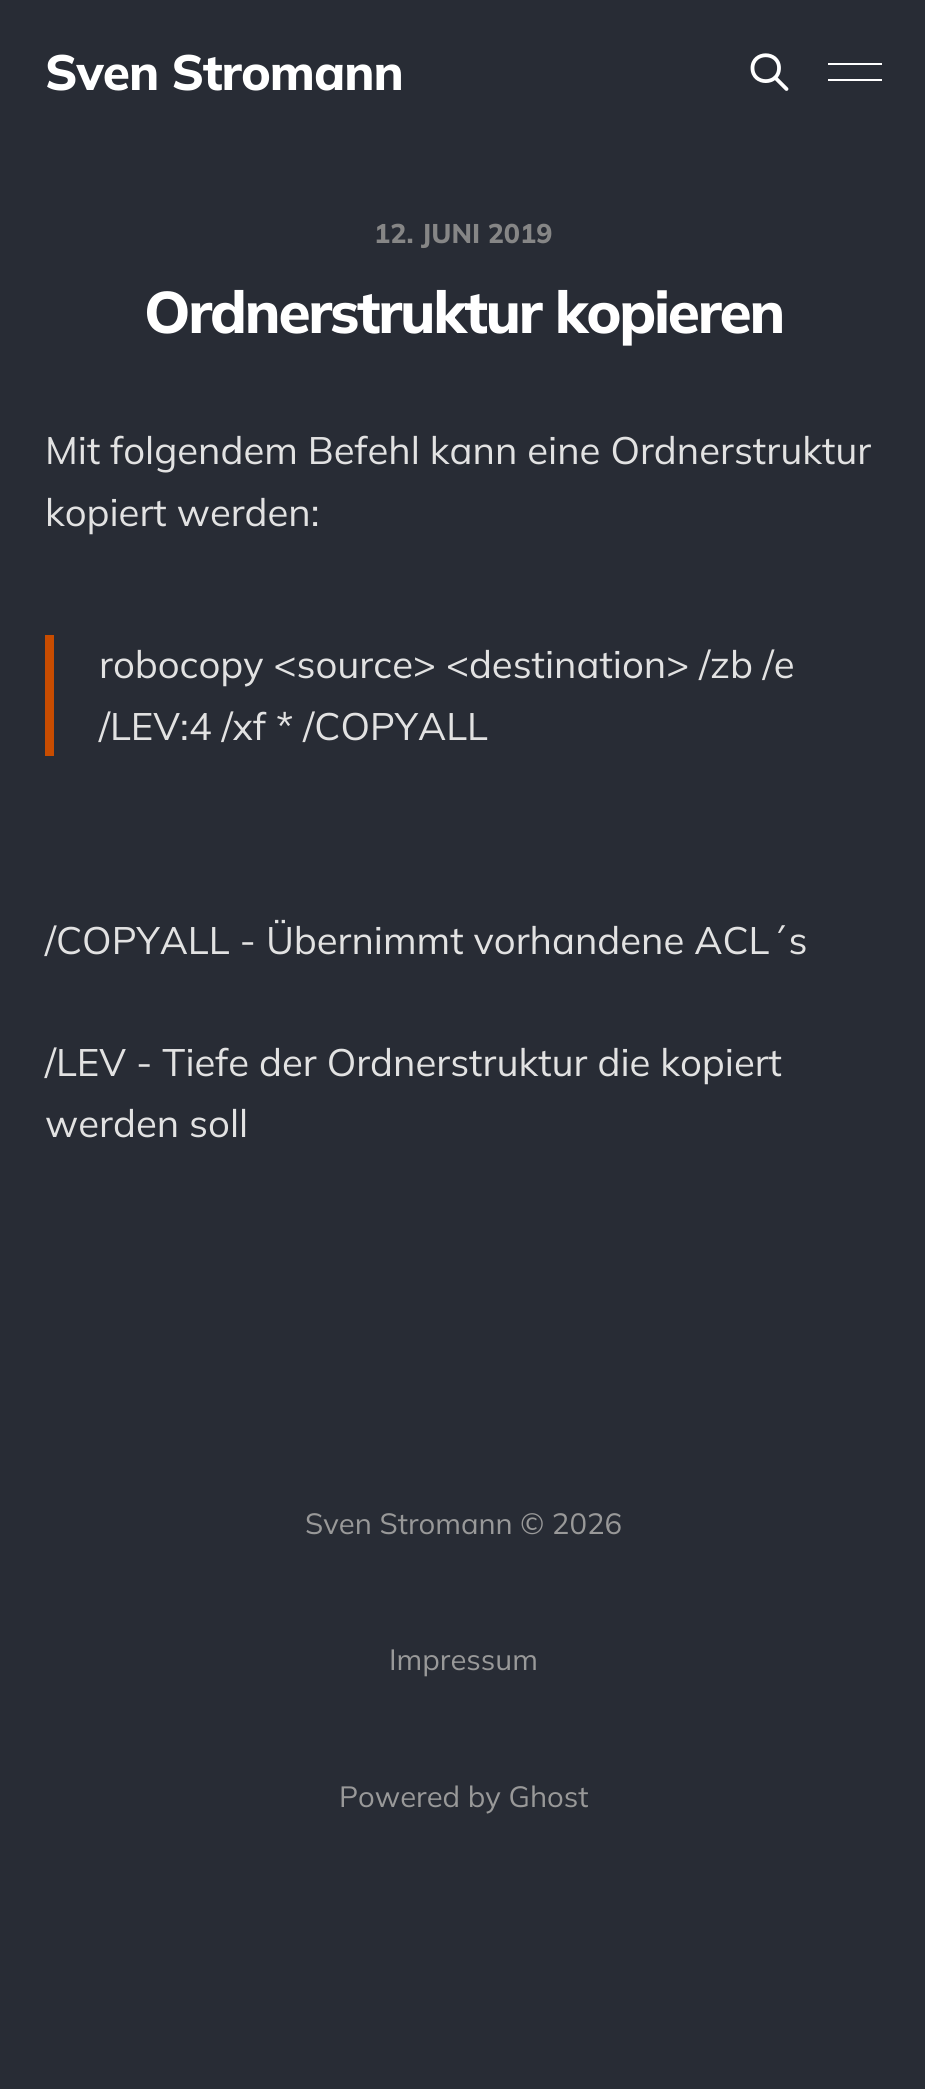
#include <cairo.h>
#include <math.h>
#include <stddef.h>

static cairo_t *c;
static void C(unsigned color){cairo_set_source_rgb(c, (color >> 16) / 255.0, (color >> 8 & 255) / 255.0, (color & 255) / 255.0);}
static void F(const char *family, double size, int italic, int bold){cairo_select_font_face(c, family, italic ? CAIRO_FONT_SLANT_ITALIC : CAIRO_FONT_SLANT_NORMAL,bold ? CAIRO_FONT_WEIGHT_BOLD : CAIRO_FONT_WEIGHT_NORMAL);cairo_set_font_size(c, size);}
static void T(double x, double y, const char *s){cairo_move_to(c, x, y);cairo_show_text(c, s);}
static void L(double x, double y, const char *s, double letter, double word){cairo_move_to(c, x, y);while (*s) {char ch[5] = {0};int n = 0;do ch[n++] = *s++; while ((*s & 0xC0) == 0x80);cairo_show_text(c, ch);cairo_rel_move_to(c, letter + word * (*ch == ' '), 0);}}
static void R(double x, double y, double w, double h){cairo_rectangle(c, x, y, w, h);cairo_fill(c);}
int main(void) {
cairo_surface_t *surface = cairo_image_surface_create(CAIRO_FORMAT_RGB24, 925, 2089);
c = cairo_create(surface);
cairo_font_options_t *options = cairo_font_options_create();
cairo_font_options_set_hint_metrics(options, CAIRO_HINT_METRICS_OFF);
cairo_font_options_set_hint_style(options, CAIRO_HINT_STYLE_NONE);
cairo_set_font_options(c, options);
cairo_set_miter_limit(c, 4);
C(0x282c35);
cairo_paint(c);
F("Mulish ExtraLight",49.5,0,0);
C(0xffffff);
L(45,90,"Sven Stromann",-1,0);
cairo_new_path(c);
cairo_move_to(c,786.5,89);
cairo_line_to(c,775,77.5);
cairo_move_to(c,779,68);
cairo_curve_to(c,779,85.5,752.5,85.5,752.5,68);
cairo_curve_to(c,752.5,51,779,51,779,68);
cairo_close_path(c);
cairo_set_line_width(c,3.8);
cairo_set_line_cap(c,CAIRO_LINE_CAP_ROUND);
cairo_set_line_join(c,CAIRO_LINE_JOIN_ROUND);
cairo_stroke(c);
R(828,63,54,2);
R(828,79,54,2);
F("Mulish ExtraLight",27,0,0);
C(0x868686);
T(374,243,"12. JUNI 2019");
F("Mulish ExtraLight",58.5,0,0);
C(0xffffff);
L(144,333,"Ordnerstruktur kopieren",-2.25,0);
F("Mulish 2 ExtraLight",38.25,0,0);
C(0xe2e2e2);
T(45,464,"Mit folgendem Befehl kann eine Ordnerstruktur");
T(45,526,"kopiert werden:");
C(0xc84c00);
R(45,635,9,121);
C(0xe2e2e2);
T(99,678,"robocopy <source> <destination> /zb /e");
T(99,740,"/LEV:4 /xf * /COPYALL");
T(45,954,"/COPYALL - Übernimmt vorhandene ACL´s");
T(45,1076,"/LEV - Tiefe der Ordnerstruktur die kopiert");
T(45,1137,"werden soll");
F("Mulish 2 ExtraLight",29.25,0,0);
C(0x999999);
T(305,1534,"Sven Stromann © 2026");
T(389,1670,"Impressum");
T(339,1807,"Powered by Ghost");
cairo_surface_write_to_png(surface, "o.png");
cairo_font_options_destroy(options);
cairo_destroy(c);
cairo_surface_destroy(surface);
return 0;
}
